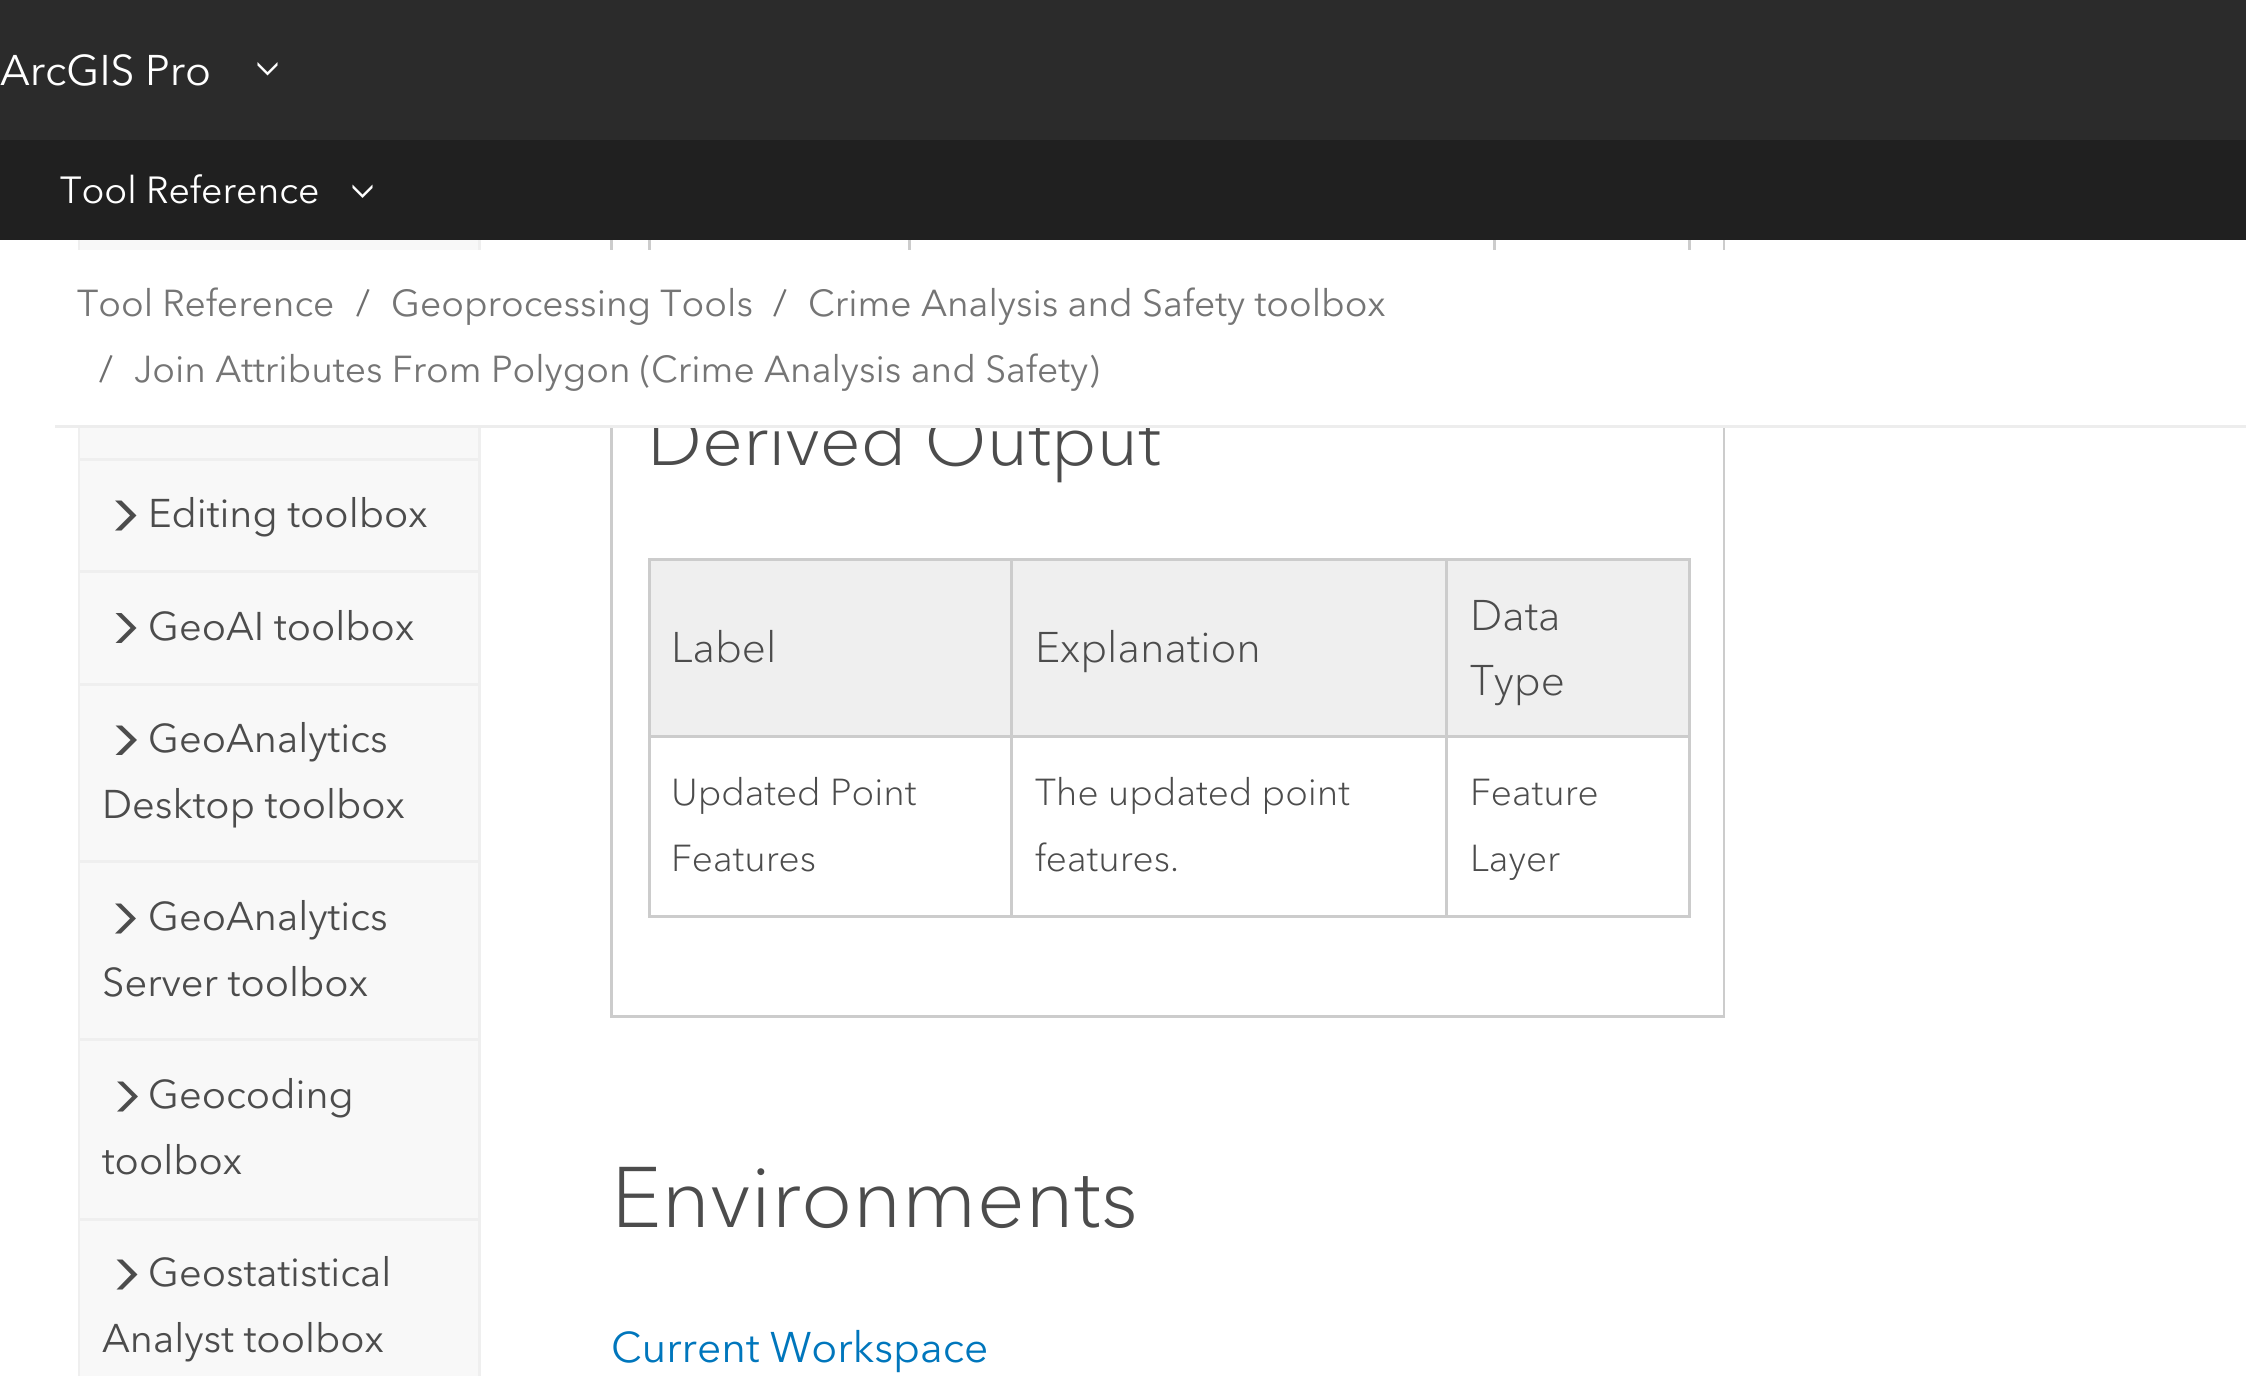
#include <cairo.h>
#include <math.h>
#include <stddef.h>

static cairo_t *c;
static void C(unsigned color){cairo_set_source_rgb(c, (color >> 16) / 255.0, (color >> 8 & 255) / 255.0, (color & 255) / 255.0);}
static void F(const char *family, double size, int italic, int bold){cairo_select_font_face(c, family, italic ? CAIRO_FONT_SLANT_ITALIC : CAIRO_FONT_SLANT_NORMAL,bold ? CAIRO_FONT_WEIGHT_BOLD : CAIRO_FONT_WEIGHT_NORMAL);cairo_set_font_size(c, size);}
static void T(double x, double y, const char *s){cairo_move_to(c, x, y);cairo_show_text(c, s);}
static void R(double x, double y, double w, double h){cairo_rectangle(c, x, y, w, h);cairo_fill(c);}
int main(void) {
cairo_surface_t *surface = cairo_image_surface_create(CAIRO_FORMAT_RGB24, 2246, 1376);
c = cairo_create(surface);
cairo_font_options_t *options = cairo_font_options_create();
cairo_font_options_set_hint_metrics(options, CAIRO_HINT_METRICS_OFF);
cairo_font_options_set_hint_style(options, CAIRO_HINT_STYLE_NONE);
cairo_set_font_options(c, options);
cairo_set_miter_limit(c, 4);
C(0xffffff);
cairo_paint(c);
cairo_rectangle(c,611.5,-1.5,1112,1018);
C(0xcccccc);
cairo_set_line_width(c,3);
cairo_stroke(c);
C(0x2b2b2b);
R(0,0,2246,140);
F("Avenir Next",42.5,0,0);
C(0xffffff);
T(0,85,"ArcGIS Pro");
cairo_new_path(c);
cairo_move_to(c,267.5,75.5);
cairo_line_to(c,257.5,65.5);
cairo_line_to(c,257.5,62);
cairo_line_to(c,267.5,72);
cairo_line_to(c,277.5,62);
cairo_line_to(c,277.5,65.5);
cairo_close_path(c);
cairo_fill(c);
C(0x202020);
R(0,140,2246,100);
F("Avenir Next",37.5,0,0);
C(0xffffff);
T(60,203,"Tool Reference");
cairo_new_path(c);
cairo_move_to(c,362.5,198);
cairo_line_to(c,352.5,188);
cairo_line_to(c,352.5,184.5);
cairo_line_to(c,362.5,194.5);
cairo_line_to(c,372.5,184.5);
cairo_line_to(c,372.5,188);
cairo_close_path(c);
cairo_fill(c);
C(0xefefef);
R(478,240,3,1136);
R(78,240,2,1136);
C(0xffffff);
R(1722,240,1,775);
F("Avenir Next Light",72.25,0,0);
C(0x4c4c4c);
T(647,465,"Derived Output");
C(0xffffff);
R(78,250,1647,175);
C(0xededed);
R(55,425,2191,3);
F("Avenir Next",37.2,0,0);
C(0x757575);
T(77,316,"Tool Reference");
C(0x6e6e6e);
T(356,316,"/");
C(0x757575);
T(391,316,"Geoprocessing Tools");
C(0x6e6e6e);
T(773,316,"/");
C(0x757575);
T(808,316,"Crime Analysis and Safety toolbox");
C(0x6e6e6e);
T(99,382,"/");
C(0x757575);
T(134,382,"Join Attributes From Polygon (Crime Analysis and Safety)");
C(0xf8f8f8);
R(80,240,398,10);
R(80,428,398,30);
R(80,461,398,109);
C(0xefefef);
R(80,458,398,3);
C(0x4c4c4c);
cairo_new_path(c);
cairo_move_to(c,115,500.5);
cairo_line_to(c,121.5,500.5);
cairo_line_to(c,136.5,515.5);
cairo_line_to(c,121.5,530.5);
cairo_line_to(c,115,530.5);
cairo_line_to(c,130,515.5);
cairo_close_path(c);
cairo_fill(c);
F("Avenir Next",39.75,0,0);
T(148,527,"Editing toolbox");
C(0xf8f8f8);
R(80,573,398,110);
C(0xefefef);
R(80,570,398,3);
C(0x4c4c4c);
cairo_new_path(c);
cairo_move_to(c,115.5,613);
cairo_line_to(c,121.5,613);
cairo_line_to(c,136.5,628);
cairo_line_to(c,121.5,643);
cairo_line_to(c,115.5,643);
cairo_line_to(c,130.5,628);
cairo_close_path(c);
cairo_fill(c);
T(148,640,"GeoAI toolbox");
C(0xf8f8f8);
R(80,686,398,174);
C(0xefefef);
R(80,683,398,3);
C(0x4c4c4c);
cairo_new_path(c);
cairo_move_to(c,115.5,725.5);
cairo_line_to(c,122,725.5);
cairo_line_to(c,137,740);
cairo_line_to(c,122,755);
cairo_line_to(c,115.5,755);
cairo_line_to(c,130.5,740);
cairo_close_path(c);
cairo_fill(c);
T(148,752,"GeoAnalytics");
T(102,818,"Desktop toolbox");
C(0xf8f8f8);
R(80,863,398,175);
C(0xefefef);
R(80,860,398,3);
C(0x4c4c4c);
cairo_new_path(c);
cairo_move_to(c,115,903.5);
cairo_line_to(c,121,903.5);
cairo_line_to(c,136,918.5);
cairo_line_to(c,121,933.5);
cairo_line_to(c,115,933.5);
cairo_line_to(c,130,918.5);
cairo_close_path(c);
cairo_fill(c);
T(148,930,"GeoAnalytics");
T(102,996,"Server toolbox");
C(0xf8f8f8);
R(80,1041,398,177);
C(0xefefef);
R(80,1038,398,3);
C(0x4c4c4c);
cairo_new_path(c);
cairo_move_to(c,117,1081.5);
cairo_line_to(c,123,1081.5);
cairo_line_to(c,138,1096.5);
cairo_line_to(c,123,1111.5);
cairo_line_to(c,117,1111.5);
cairo_line_to(c,132,1096.5);
cairo_close_path(c);
cairo_fill(c);
T(148,1108,"Geocoding");
T(102,1174,"toolbox");
C(0xf8f8f8);
R(80,1221,398,155);
C(0xefefef);
R(80,1218,398,3);
C(0x4c4c4c);
cairo_new_path(c);
cairo_move_to(c,116.5,1259.5);
cairo_line_to(c,122.5,1259.5);
cairo_line_to(c,137.5,1274.5);
cairo_line_to(c,122.5,1289.5);
cairo_line_to(c,116.5,1289.5);
cairo_line_to(c,131,1274.5);
cairo_close_path(c);
cairo_fill(c);
T(148,1286,"Geostatistical");
T(102,1352,"Analyst toolbox");
C(0xcccccc);
R(1688,240,3,10);
R(648,240,3,10);
R(908,240,3,10);
R(1493,240,3,10);
R(648,558,1042,3);
R(1688,558,3,360);
R(648,915,1042,3);
R(648,558,3,360);
C(0xefefef);
R(651,561,1037,174);
C(0xcccccc);
R(648,735,1042,3);
F("Avenir Next Light",42.5,0,0);
C(0x4c4c4c);
T(671,662,"Label");
T(1035,662,"Explanation");
T(1470,630,"Data");
T(1470,695,"Type");
F("Avenir Next Light",37.2,0,0);
T(671,805,"Updated Point");
T(671,871,"Features");
C(0xcccccc);
R(1010,558,3,360);
C(0x4c4c4c);
T(1035,805,"The updated point");
T(1035,871,"features.");
C(0xcccccc);
R(1445,558,3,360);
C(0x4c4c4c);
T(1470,805,"Feature");
T(1470,871,"Layer");
F("Avenir Next Light",85,0,0);
T(611,1227,"Environments");
F("Avenir Next",42.5,0,0);
C(0x0076bc);
T(611,1362,"Current Workspace");
cairo_surface_write_to_png(surface, "o.png");
cairo_font_options_destroy(options);
cairo_destroy(c);
cairo_surface_destroy(surface);
return 0;
}
